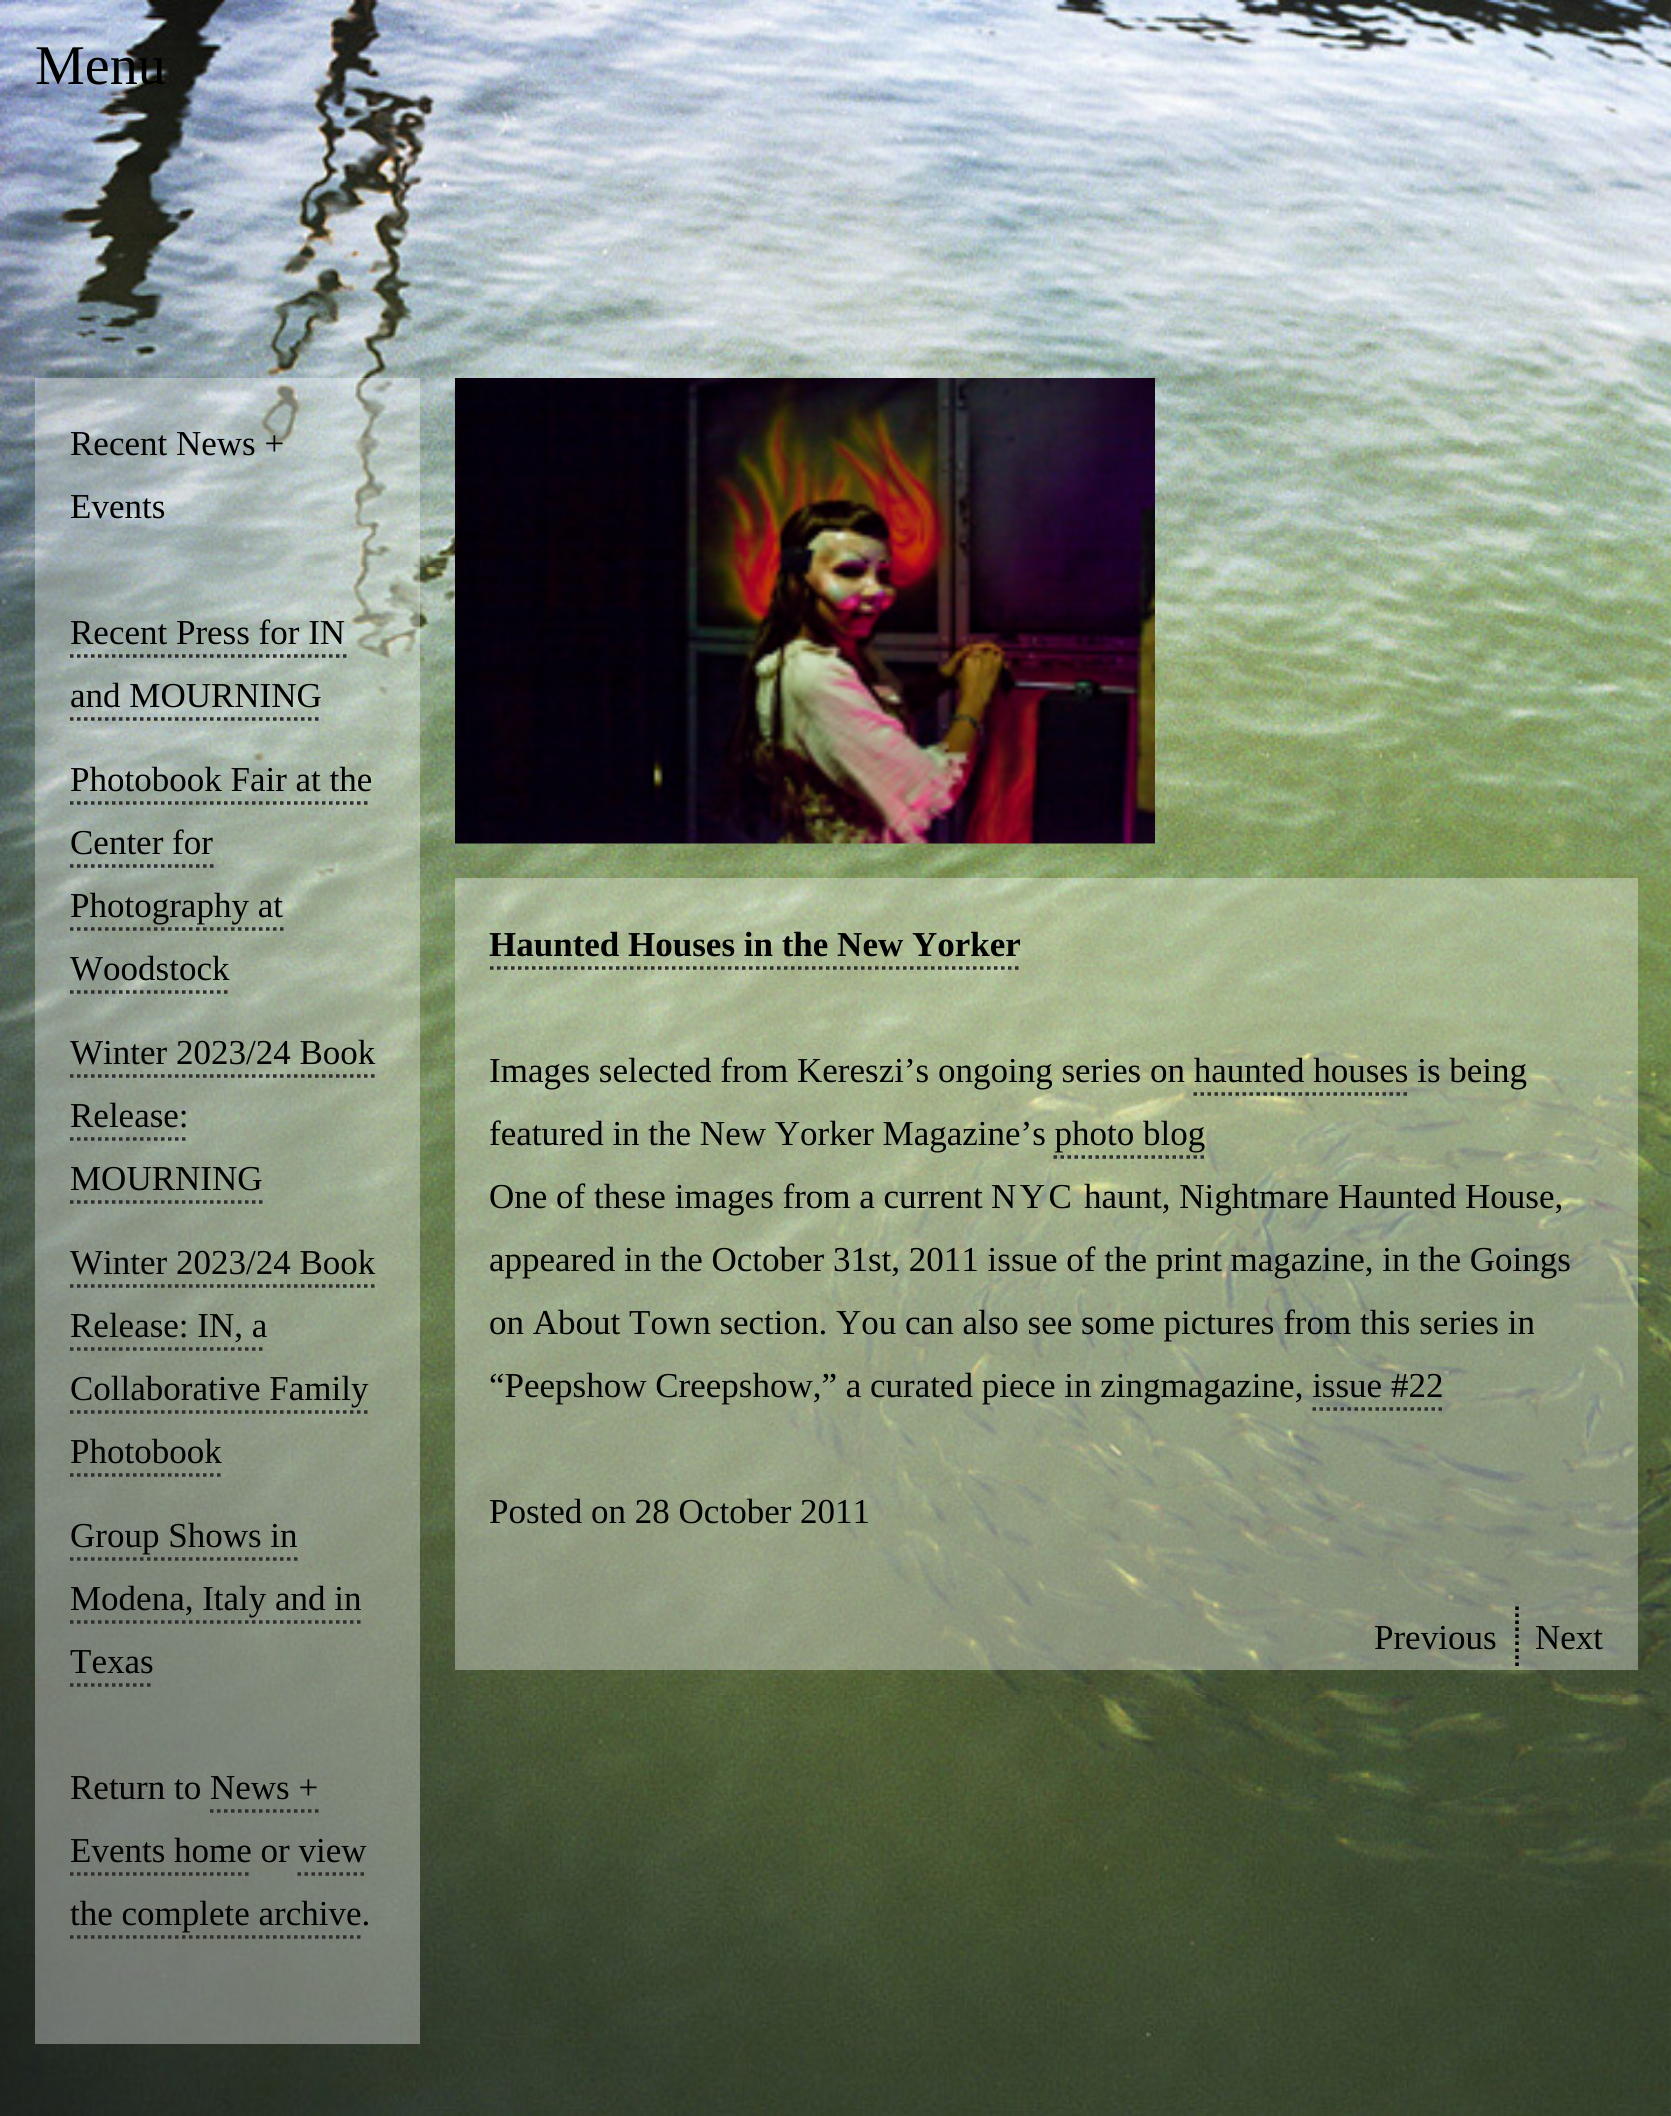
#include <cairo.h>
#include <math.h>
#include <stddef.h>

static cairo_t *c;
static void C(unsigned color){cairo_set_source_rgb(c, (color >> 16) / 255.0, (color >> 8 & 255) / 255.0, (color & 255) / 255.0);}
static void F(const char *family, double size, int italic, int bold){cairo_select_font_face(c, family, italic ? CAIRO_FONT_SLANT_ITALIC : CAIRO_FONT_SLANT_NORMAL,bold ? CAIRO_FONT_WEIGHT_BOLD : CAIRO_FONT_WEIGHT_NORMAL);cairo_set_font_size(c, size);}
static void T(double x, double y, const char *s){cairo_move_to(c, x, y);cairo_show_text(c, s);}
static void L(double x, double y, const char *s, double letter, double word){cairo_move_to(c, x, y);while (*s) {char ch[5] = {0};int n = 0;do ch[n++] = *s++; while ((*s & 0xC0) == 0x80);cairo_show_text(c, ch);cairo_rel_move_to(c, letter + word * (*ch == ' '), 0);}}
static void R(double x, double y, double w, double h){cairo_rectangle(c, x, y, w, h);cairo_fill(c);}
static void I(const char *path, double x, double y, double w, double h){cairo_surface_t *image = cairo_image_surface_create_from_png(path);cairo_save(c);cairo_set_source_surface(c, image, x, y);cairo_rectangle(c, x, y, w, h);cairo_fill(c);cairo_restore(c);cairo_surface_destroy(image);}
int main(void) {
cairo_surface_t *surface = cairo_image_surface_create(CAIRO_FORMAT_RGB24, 1671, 2116);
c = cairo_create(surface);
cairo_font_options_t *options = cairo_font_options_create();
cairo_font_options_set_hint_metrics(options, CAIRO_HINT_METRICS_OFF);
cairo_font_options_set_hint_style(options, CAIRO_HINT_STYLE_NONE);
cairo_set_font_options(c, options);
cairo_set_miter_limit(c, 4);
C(0xffffff);
cairo_paint(c);
I("1.png",0,0,1671,2116);
F("Liberation Serif",56,0,0);
C(0x000000);
T(35,84,"Menu");
cairo_set_source_rgba(c,1,1,1,0.35);
R(35,378,385,1666);
F("Liberation Serif",35,0,0);
C(0x000000);
T(70,455,"Recent News +");
T(70,518,"Events");
T(70,644,"Recent Press for IN");
cairo_new_path(c);
cairo_move_to(c,70,656);
cairo_line_to(c,346.5,656);
C(0x2e2e2e);
cairo_set_line_width(c,3.5);
cairo_set_dash(c,(double[]){3.5,3.5},2,0);
cairo_stroke(c);
C(0x000000);
T(70,707,"and MOURNING");
cairo_new_path(c);
cairo_move_to(c,70,719);
cairo_line_to(c,322,719);
C(0x2e2e2e);
cairo_stroke(c);
C(0x000000);
T(70,791,"Photobook Fair at the");
cairo_new_path(c);
cairo_move_to(c,70,803);
cairo_line_to(c,371,803);
C(0x2e2e2e);
cairo_stroke(c);
C(0x000000);
T(70,854,"Center for");
cairo_new_path(c);
cairo_move_to(c,70,866);
cairo_line_to(c,213.5,866);
C(0x2e2e2e);
cairo_stroke(c);
C(0x000000);
T(70,917,"Photography at");
cairo_new_path(c);
cairo_move_to(c,70,929);
cairo_line_to(c,283.5,929);
C(0x2e2e2e);
cairo_stroke(c);
C(0x000000);
T(70,980,"Woodstock");
cairo_new_path(c);
cairo_move_to(c,70,992);
cairo_line_to(c,231,992);
C(0x2e2e2e);
cairo_stroke(c);
C(0x000000);
T(70,1064,"Winter 2023/24 Book");
cairo_new_path(c);
cairo_move_to(c,70,1076);
cairo_line_to(c,374.5,1076);
C(0x2e2e2e);
cairo_stroke(c);
C(0x000000);
T(70,1127,"Release:");
cairo_new_path(c);
cairo_move_to(c,70,1139);
cairo_line_to(c,189,1139);
C(0x2e2e2e);
cairo_stroke(c);
C(0x000000);
T(70,1190,"MOURNING");
cairo_new_path(c);
cairo_move_to(c,70,1202);
cairo_line_to(c,262.5,1202);
C(0x2e2e2e);
cairo_stroke(c);
C(0x000000);
T(70,1274,"Winter 2023/24 Book");
cairo_new_path(c);
cairo_move_to(c,70,1286);
cairo_line_to(c,374.5,1286);
C(0x2e2e2e);
cairo_stroke(c);
C(0x000000);
T(70,1337,"Release: IN, a");
cairo_new_path(c);
cairo_move_to(c,70,1349);
cairo_line_to(c,266,1349);
C(0x2e2e2e);
cairo_stroke(c);
C(0x000000);
T(70,1400,"Collaborative Family");
cairo_new_path(c);
cairo_move_to(c,70,1412);
cairo_line_to(c,367.5,1412);
C(0x2e2e2e);
cairo_stroke(c);
C(0x000000);
T(70,1463,"Photobook");
cairo_new_path(c);
cairo_move_to(c,70,1475);
cairo_line_to(c,220.5,1475);
C(0x2e2e2e);
cairo_stroke(c);
C(0x000000);
T(70,1547,"Group Shows in");
cairo_new_path(c);
cairo_move_to(c,70,1559);
cairo_line_to(c,297.5,1559);
C(0x2e2e2e);
cairo_stroke(c);
C(0x000000);
T(70,1610,"Modena, Italy and in");
cairo_new_path(c);
cairo_move_to(c,70,1622);
cairo_line_to(c,360.5,1622);
C(0x2e2e2e);
cairo_stroke(c);
C(0x000000);
T(70,1673,"Texas");
cairo_new_path(c);
cairo_move_to(c,70,1685);
cairo_line_to(c,154,1685);
C(0x2e2e2e);
cairo_stroke(c);
C(0x000000);
T(70,1799,"Return to News +");
T(70,1862,"Events home or view");
cairo_new_path(c);
cairo_move_to(c,210,1811);
cairo_line_to(c,318.5,1811);
C(0x2e2e2e);
cairo_stroke(c);
cairo_new_path(c);
cairo_move_to(c,70,1874);
cairo_line_to(c,252,1874);
cairo_stroke(c);
C(0x000000);
T(70,1925,"the complete archive.");
cairo_new_path(c);
cairo_move_to(c,297.5,1874);
cairo_line_to(c,367.5,1874);
C(0x2e2e2e);
cairo_stroke(c);
cairo_new_path(c);
cairo_move_to(c,70,1937);
cairo_line_to(c,360.5,1937);
cairo_stroke(c);
I("2.png",455,378,700,466);
cairo_set_source_rgba(c,1,1,1,0.35);
R(455,878,1183,792);
F("Liberation Serif",35,0,1);
C(0x000000);
T(489,956,"Haunted Houses in the New Yorker");
cairo_new_path(c);
cairo_move_to(c,490,968);
cairo_line_to(c,1022,968);
C(0x2e2e2e);
cairo_stroke(c);
F("Liberation Serif",35,0,0);
C(0x000000);
T(489,1082,"Images selected from Kereszi’s ongoing series on haunted houses is being");
cairo_new_path(c);
cairo_move_to(c,1193.5,1094);
cairo_line_to(c,1407,1094);
C(0x2e2e2e);
cairo_stroke(c);
C(0x000000);
T(489,1145,"featured in the New Yorker Magazine’s photo blog");
cairo_new_path(c);
cairo_move_to(c,1053.5,1157);
cairo_line_to(c,1204,1157);
C(0x2e2e2e);
cairo_stroke(c);
C(0x000000);
T(489,1208,"One of these images from a current");
L(991,1208,"NYC",3.5,0);
T(1084,1208,"haunt, Nightmare Haunted House,");
T(489,1271,"appeared in the October 31st, 2011 issue of the print magazine, in the Goings");
T(489,1334,"on About Town section. You can also see some pictures from this series in");
T(489,1397,"“Peepshow Creepshow,” a curated piece in zingmagazine, issue #22");
cairo_new_path(c);
cairo_move_to(c,1312.5,1409);
cairo_line_to(c,1442,1409);
C(0x2e2e2e);
cairo_stroke(c);
C(0x000000);
T(489,1523,"Posted on 28 October 2011");
cairo_new_path(c);
cairo_move_to(c,1517,1606.5);
cairo_line_to(c,1517,1669.5);
cairo_stroke(c);
T(1374,1649,"Previous");
T(1535,1649,"Next");
cairo_surface_write_to_png(surface, "o.png");
cairo_font_options_destroy(options);
cairo_destroy(c);
cairo_surface_destroy(surface);
return 0;
}
